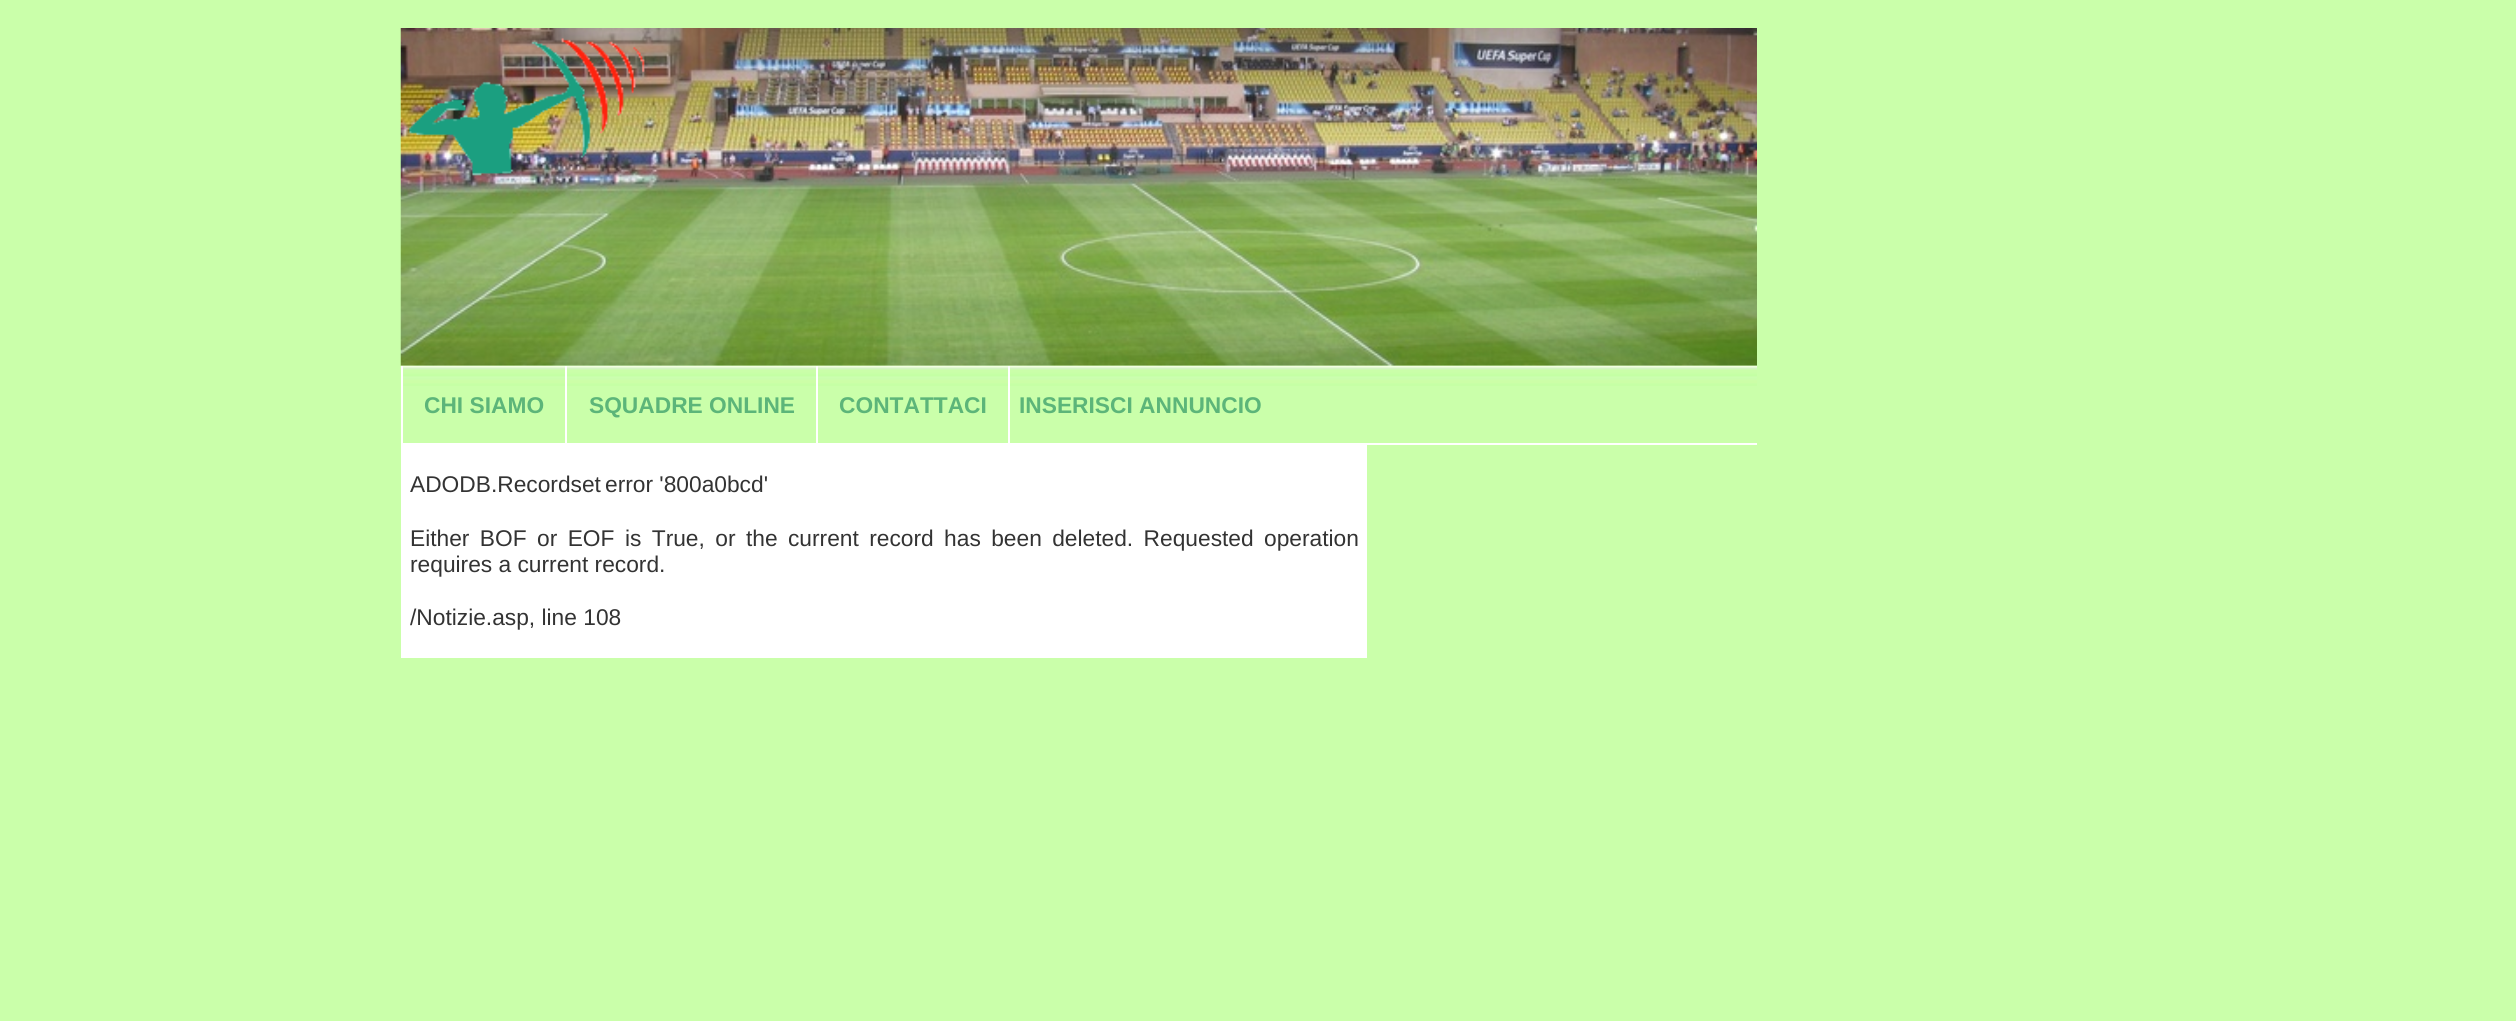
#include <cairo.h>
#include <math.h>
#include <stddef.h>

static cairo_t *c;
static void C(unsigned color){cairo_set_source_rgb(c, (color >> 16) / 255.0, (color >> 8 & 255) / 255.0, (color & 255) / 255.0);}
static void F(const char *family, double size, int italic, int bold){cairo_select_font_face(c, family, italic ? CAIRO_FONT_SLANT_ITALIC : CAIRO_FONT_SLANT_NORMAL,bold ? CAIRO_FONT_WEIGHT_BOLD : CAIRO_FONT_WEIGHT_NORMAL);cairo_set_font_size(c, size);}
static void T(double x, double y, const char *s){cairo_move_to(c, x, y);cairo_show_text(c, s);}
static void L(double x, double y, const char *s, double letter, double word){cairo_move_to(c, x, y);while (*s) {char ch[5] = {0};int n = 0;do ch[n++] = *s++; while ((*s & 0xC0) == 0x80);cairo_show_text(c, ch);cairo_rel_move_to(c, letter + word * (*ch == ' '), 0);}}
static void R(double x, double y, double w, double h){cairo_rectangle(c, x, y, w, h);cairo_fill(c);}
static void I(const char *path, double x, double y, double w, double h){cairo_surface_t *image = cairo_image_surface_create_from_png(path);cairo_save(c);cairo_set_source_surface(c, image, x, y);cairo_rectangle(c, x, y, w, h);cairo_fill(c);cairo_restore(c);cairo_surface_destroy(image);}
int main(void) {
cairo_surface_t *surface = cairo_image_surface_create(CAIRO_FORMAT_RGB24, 2516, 1021);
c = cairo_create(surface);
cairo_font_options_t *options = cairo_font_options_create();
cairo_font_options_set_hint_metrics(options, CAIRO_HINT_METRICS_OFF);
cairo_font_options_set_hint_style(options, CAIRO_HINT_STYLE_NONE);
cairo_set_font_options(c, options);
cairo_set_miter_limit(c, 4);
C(0xcaffaa);
cairo_paint(c);
I("1.png",400,28,1357,338);
I("2.png",409,38,236,138);
I("3.png",400,365,1357,21);
C(0xffffff);
R(401,443,1356,2);
R(401,366,2,77);
F("Liberation Sans",22.75,0,1);
C(0x5cb579);
T(424,413,"CHI SIAMO");
C(0xffffff);
R(565,366,2,77);
C(0x5cb579);
T(589,413,"SQUADRE ONLINE");
C(0xffffff);
R(816,366,2,77);
C(0x5cb579);
T(839,413,"CONTATTACI");
C(0xffffff);
R(1008,366,2,77);
C(0x5cb579);
T(1019,413,"INSERISCI ANNUNCIO");
C(0xffffff);
R(401,445,966,213);
F("Liberation Sans",22.75,0,0);
C(0x333333);
T(410,492,"ADODB.Recordset");
T(605,492,"error '800a0bcd'");
L(410,546,"Either BOF or EOF is True, or the current record has been deleted. Requested operation",0,4.1);
T(410,572,"requires a current record.");
T(410,625,"/Notizie.asp, line 108");
cairo_surface_write_to_png(surface, "o.png");
cairo_font_options_destroy(options);
cairo_destroy(c);
cairo_surface_destroy(surface);
return 0;
}
